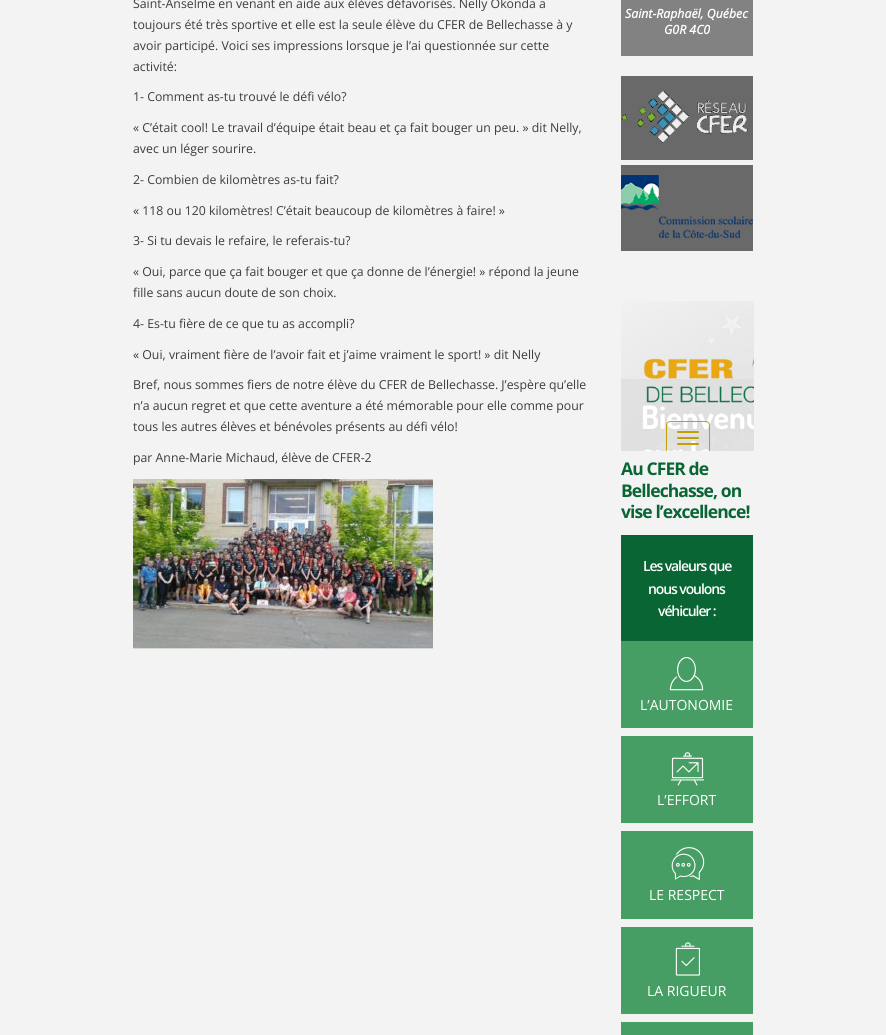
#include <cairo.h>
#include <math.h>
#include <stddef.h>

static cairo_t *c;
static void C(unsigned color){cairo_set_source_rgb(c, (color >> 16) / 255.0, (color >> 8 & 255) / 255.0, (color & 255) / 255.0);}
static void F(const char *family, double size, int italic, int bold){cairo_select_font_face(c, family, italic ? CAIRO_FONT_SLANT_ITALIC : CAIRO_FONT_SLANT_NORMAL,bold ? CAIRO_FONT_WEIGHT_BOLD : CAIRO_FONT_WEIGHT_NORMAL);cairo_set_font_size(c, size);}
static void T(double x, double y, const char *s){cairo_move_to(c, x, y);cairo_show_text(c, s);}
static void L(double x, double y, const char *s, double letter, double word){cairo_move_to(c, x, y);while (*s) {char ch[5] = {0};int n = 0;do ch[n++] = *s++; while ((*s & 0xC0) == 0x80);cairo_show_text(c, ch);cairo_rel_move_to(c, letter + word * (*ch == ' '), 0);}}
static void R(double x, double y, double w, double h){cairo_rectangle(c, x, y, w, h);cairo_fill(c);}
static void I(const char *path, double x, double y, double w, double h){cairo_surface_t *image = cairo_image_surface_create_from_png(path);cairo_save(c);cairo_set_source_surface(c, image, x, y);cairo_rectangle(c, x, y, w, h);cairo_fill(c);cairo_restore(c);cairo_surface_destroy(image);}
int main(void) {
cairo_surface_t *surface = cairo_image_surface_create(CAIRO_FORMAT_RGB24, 886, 1035);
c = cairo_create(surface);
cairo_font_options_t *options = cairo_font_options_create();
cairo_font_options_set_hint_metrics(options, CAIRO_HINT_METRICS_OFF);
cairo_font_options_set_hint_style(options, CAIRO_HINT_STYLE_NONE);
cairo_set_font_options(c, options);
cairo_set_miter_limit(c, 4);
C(0xf3f3f3);
cairo_paint(c);
F("Open Sans",12.3,0,0);
C(0x3c3c3c);
T(133,8,"Saint-Anselme en venant en aide aux élèves défavorisés. Nelly Okonda a");
T(133,29,"toujours été très sportive et elle est la seule élève du CFER de Bellechasse à y");
T(133,50,"avoir participé. Voici ses impressions lorsque je l’ai questionnée sur cette");
T(133,71,"activité:");
T(133,101,"1- Comment as-tu trouvé le défi vélo?");
T(133,132,"« C’était cool! Le travail d’équipe était beau et ça fait bouger un peu. » dit Nelly,");
T(133,153,"avec un léger sourire.");
T(133,184,"2- Combien de kilomètres as-tu fait?");
T(133,215,"« 118 ou 120 kilomètres! C’était beaucoup de kilomètres à faire! »");
T(133,245,"3- Si tu devais le refaire, le referais-tu?");
T(133,276,"« Oui, parce que ça fait bouger et que ça donne de l’énergie! » répond la jeune");
T(133,297,"fille sans aucun doute de son choix.");
T(133,328,"4- Es-tu fière de ce que tu as accompli?");
T(133,359,"« Oui, vraiment fière de l’avoir fait et j’aime vraiment le sport! » dit Nelly");
T(133,389,"Bref, nous sommes fiers de notre élève du CFER de Bellechasse. J’espère qu’elle");
T(133,410,"n’a aucun regret et que cette aventure a été mémorable pour elle comme pour");
T(133,431,"tous les autres élèves et bénévoles présents au défi vélo!");
T(133,462,"par Anne-Marie Michaud, élève de CFER-2");
I("1.png",133,479,300,170);
C(0x828282);
R(621,0,132,56);
F("Open Sans",12.3,1,1);
C(0xffffff);
T(625,18,"Saint-Raphaël, Québec");
T(664,34,"G0R 4C0");
C(0x696969);
R(621,76,132,84);
I("2.png",621,91,127,52);
R(621,165,132,86);
I("3.png",621,175,132,63);
I("4.png",621,301,133,150);
F("Open Sans",17.5,0,1);
C(0x0a6535);
L(621,475,"Au CFER de",-.9,0);
L(621,497,"Bellechasse, on",-.9,0);
L(621,518,"vise l’excellence!",-.9,0);
R(621,535,132,106);
F("Open Sans SemiBold",14,0,0);
C(0xffffff);
L(643,571,"Les valeurs que",-1.1,0);
L(648,594,"nous voulons",-1.1,0);
L(658,616,"véhiculer :",-1.1,0);
C(0x479e64);
R(621,641,132,87);
I("5.png",669,657,35,34);
F("Open Sans",14,0,0);
C(0xffffff);
T(640,710,"L’AUTONOMIE");
C(0x479e64);
R(621,736,132,87);
I("6.png",670,752,35,34);
C(0xffffff);
T(657,805,"L’EFFORT");
C(0x479e64);
R(621,831,132,88);
I("7.png",671,847,34,34);
C(0xffffff);
T(649,900,"LE RESPECT");
C(0x479e64);
R(621,927,132,87);
I("8.png",675,942,25,34);
C(0xffffff);
T(647,996,"LA RIGUEUR");
C(0x479e64);
R(621,1022,132,13);
cairo_surface_write_to_png(surface, "o.png");
cairo_font_options_destroy(options);
cairo_destroy(c);
cairo_surface_destroy(surface);
return 0;
}
